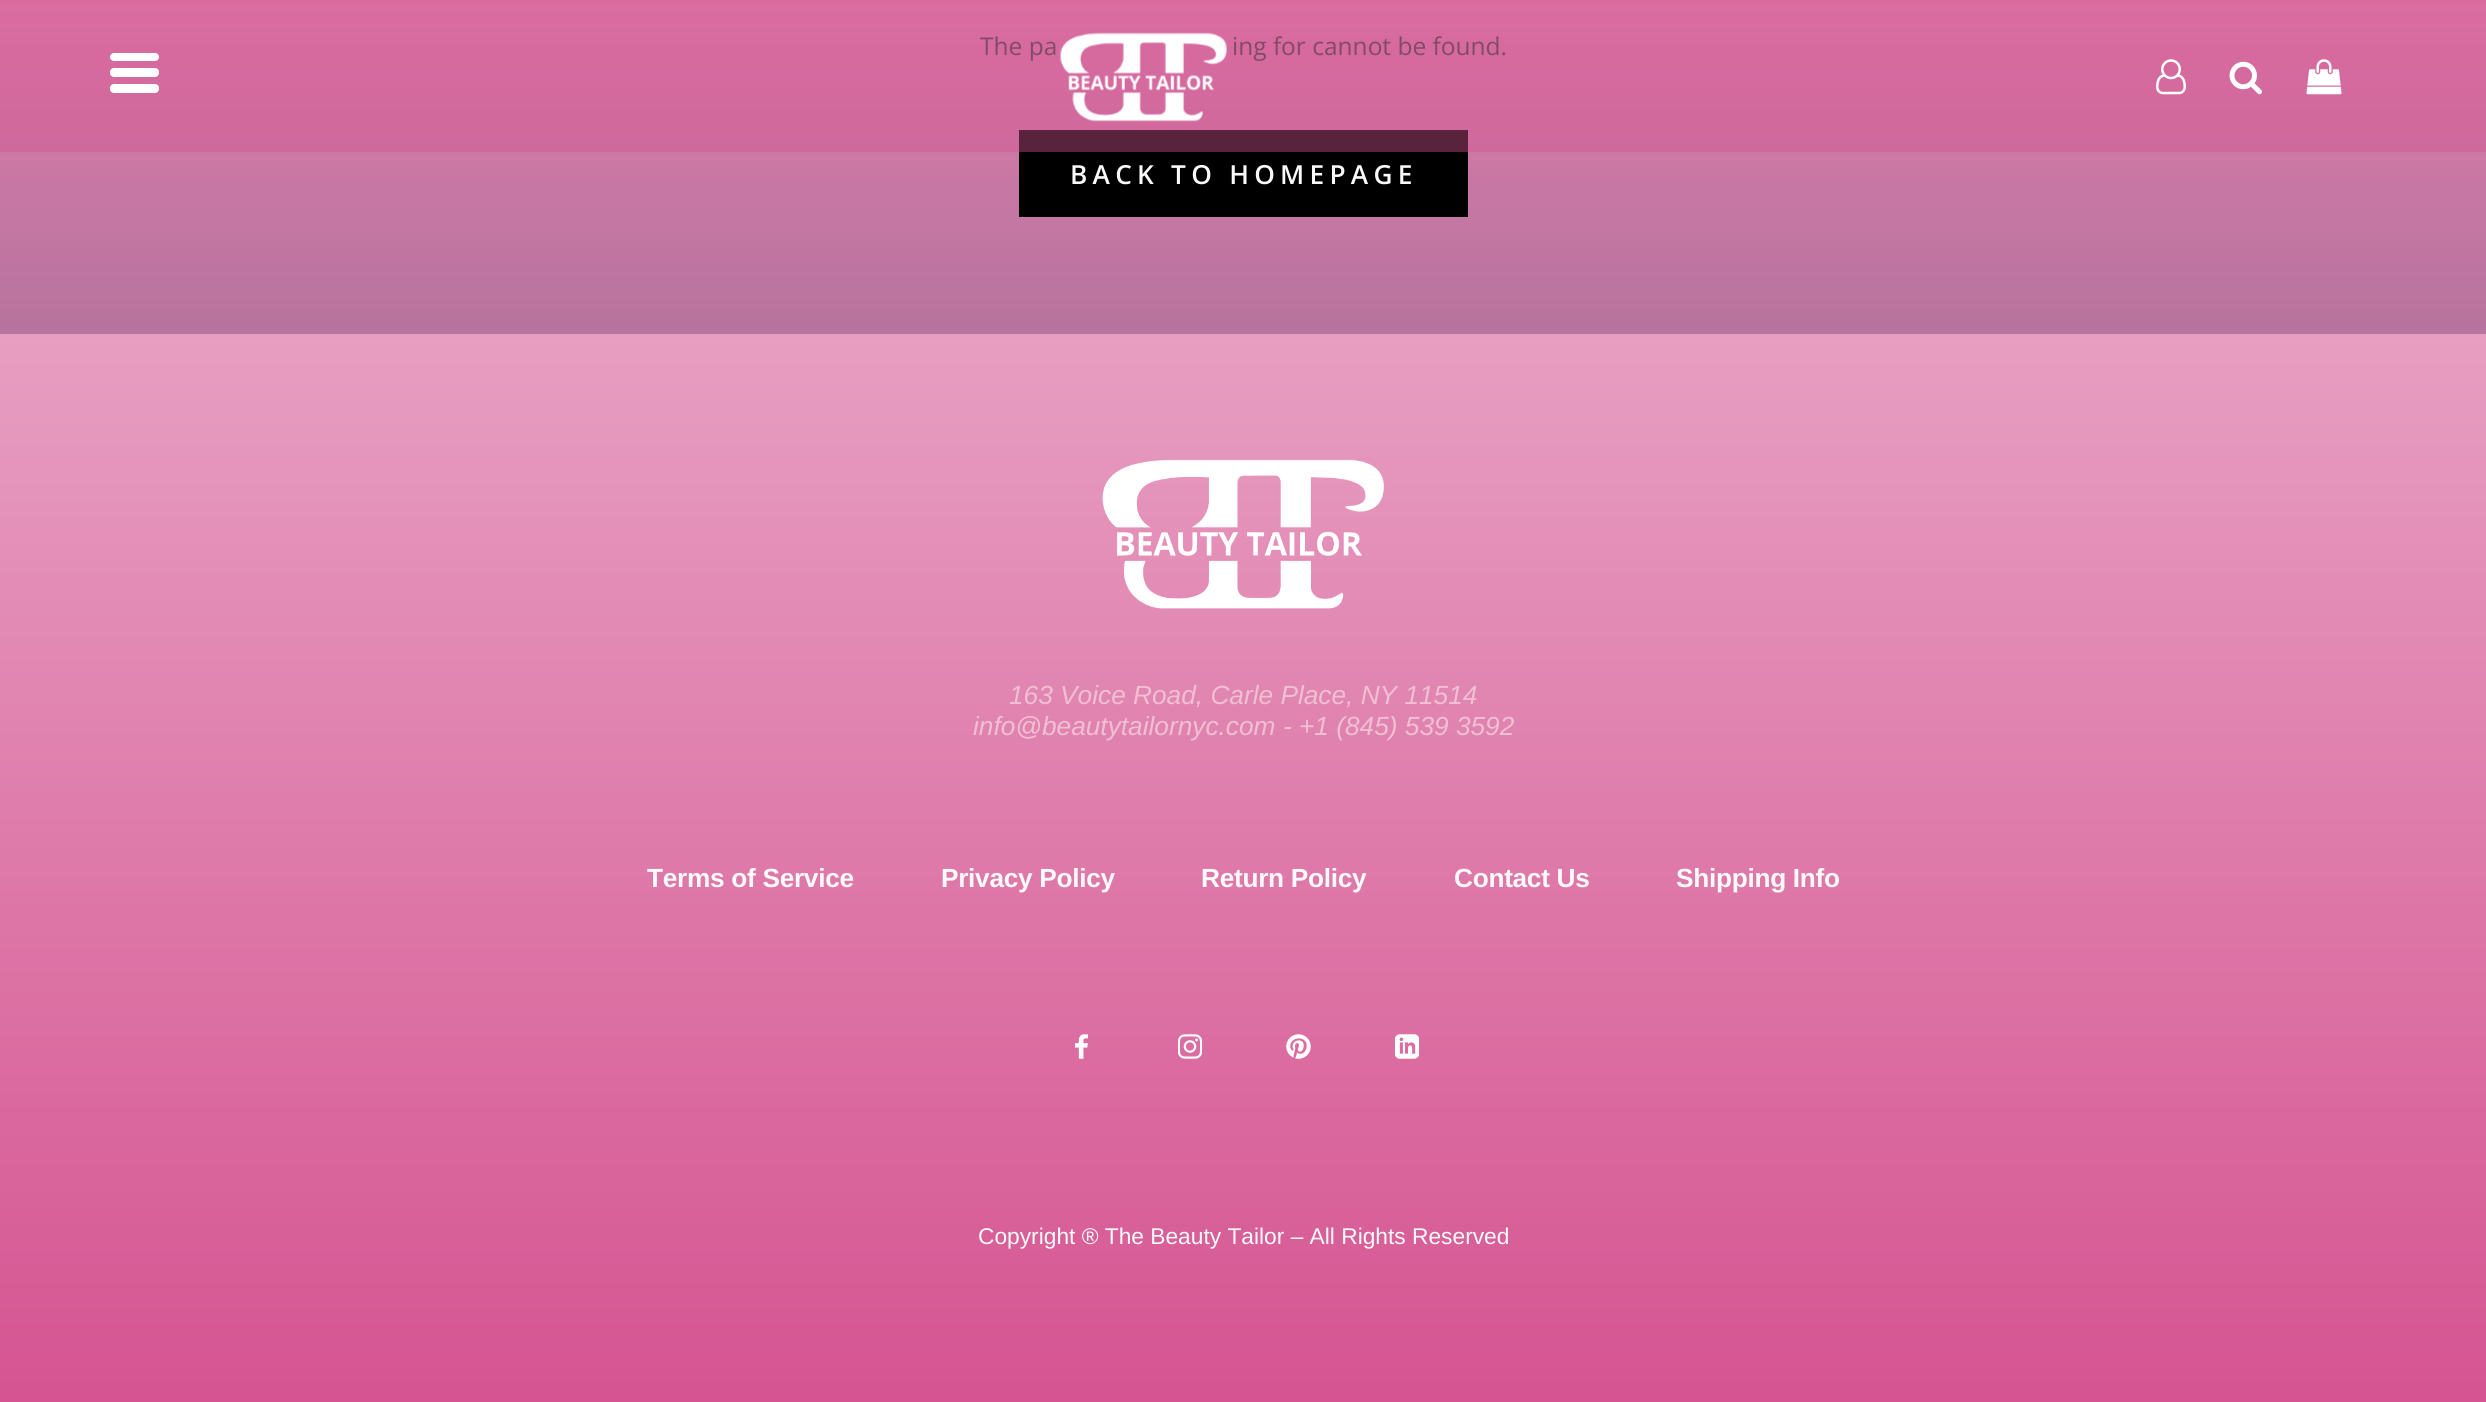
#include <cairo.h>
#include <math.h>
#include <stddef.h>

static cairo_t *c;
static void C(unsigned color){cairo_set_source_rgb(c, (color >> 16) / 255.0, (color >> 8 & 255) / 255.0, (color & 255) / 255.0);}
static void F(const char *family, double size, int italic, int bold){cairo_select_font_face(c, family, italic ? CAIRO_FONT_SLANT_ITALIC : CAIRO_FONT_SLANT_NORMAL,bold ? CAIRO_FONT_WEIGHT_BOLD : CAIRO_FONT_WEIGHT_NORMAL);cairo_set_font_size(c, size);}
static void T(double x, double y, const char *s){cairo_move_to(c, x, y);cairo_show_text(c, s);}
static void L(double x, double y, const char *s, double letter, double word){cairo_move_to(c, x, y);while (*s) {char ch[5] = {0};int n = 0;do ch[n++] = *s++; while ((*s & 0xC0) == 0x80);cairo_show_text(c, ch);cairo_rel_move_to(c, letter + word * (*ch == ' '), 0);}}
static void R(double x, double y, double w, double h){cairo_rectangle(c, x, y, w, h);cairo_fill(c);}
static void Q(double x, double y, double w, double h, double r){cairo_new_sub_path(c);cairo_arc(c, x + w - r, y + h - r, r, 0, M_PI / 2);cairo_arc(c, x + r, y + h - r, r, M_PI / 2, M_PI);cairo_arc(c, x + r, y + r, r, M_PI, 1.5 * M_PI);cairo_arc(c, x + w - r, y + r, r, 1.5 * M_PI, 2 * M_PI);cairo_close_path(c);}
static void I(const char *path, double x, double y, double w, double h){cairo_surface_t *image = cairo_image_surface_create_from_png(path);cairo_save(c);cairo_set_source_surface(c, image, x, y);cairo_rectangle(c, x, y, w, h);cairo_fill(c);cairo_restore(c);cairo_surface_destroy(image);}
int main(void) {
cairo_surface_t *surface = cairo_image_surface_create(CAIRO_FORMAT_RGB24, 2486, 1402);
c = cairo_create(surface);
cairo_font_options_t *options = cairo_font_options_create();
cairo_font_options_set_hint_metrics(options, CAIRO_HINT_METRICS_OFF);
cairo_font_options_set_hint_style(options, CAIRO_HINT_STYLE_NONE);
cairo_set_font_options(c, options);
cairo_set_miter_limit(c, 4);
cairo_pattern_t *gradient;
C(0xffffff);
cairo_paint(c);
gradient = cairo_pattern_create_linear(1243,-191,1243,334);
cairo_pattern_add_color_stop_rgba(gradient,0,1,1,1,1);
cairo_pattern_add_color_stop_rgba(gradient,.35,0.918,0.659,0.78,1);
cairo_pattern_add_color_stop_rgba(gradient,1,0.82,0.651,0.757,1);
cairo_set_source(c,gradient);
cairo_pattern_destroy(gradient);
R(0,0,2486,334);
gradient = cairo_pattern_create_linear(1243,-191,1243,334);
cairo_pattern_add_color_stop_rgba(gradient,0,0.835,0.329,0.569,0);
cairo_pattern_add_color_stop_rgba(gradient,.35,0.835,0.329,0.569,.51);
cairo_pattern_add_color_stop_rgba(gradient,1,0.584,0.204,0.443,.44);
cairo_set_source(c,gradient);
cairo_pattern_destroy(gradient);
R(0,0,2486,334);
F("Open Sans",24.5,0,0);
C(0x454545);
T(980,55,"The pa");
T(1232,55,"ing for cannot be found.");
cairo_rectangle(c,1020,131,447,85);
C(0x000000);
cairo_stroke(c);
R(1021,132,445,83);
cairo_set_source_rgba(c,0.835,0.329,0.569,0.42);
R(0,0,2486,152);
C(0xffffff);
Q(110,68,49,9,4);
cairo_fill(c);
Q(110,53,49,8,4);
cairo_fill(c);
Q(110,84,49,9,4);
cairo_fill(c);
I("1.png",1059,32,168,90);
I("2.png",2156,59,30,36);
I("3.png",2229,61,33,34);
I("4.png",2306,59,36,36);
F("Open Sans SemiBold",26.25,0,0);
C(0xfafafa);
L(1070,184,"BACK TO HOMEPAGE",5.25,0);
gradient = cairo_pattern_create_linear(1243,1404,1243,334);
cairo_pattern_add_color_stop_rgba(gradient,0,0.835,0.329,0.569,1);
cairo_pattern_add_color_stop_rgba(gradient,1,0.906,0.62,0.757,1);
cairo_set_source(c,gradient);
cairo_pattern_destroy(gradient);
R(0,334,2486,1068);
I("5.png",1102,459,283,150);
F("Liberation Sans",26.25,1,0);
C(0xf0bfd4);
T(1009,704,"163 Voice Road, Carle Place, NY 11514");
T(973,735,"info@beautytailornyc.com");
T(1283,735,"-");
T(1299,735,"+1 (845) 539 3592");
F("Liberation Sans",26.25,0,1);
C(0xfafafa);
L(647,887,"Terms of Service",-.3,0);
L(941,887,"Privacy Policy",-.3,0);
L(1201,887,"Return Policy",-.3,0);
L(1454,887,"Contact Us",-.3,0);
L(1676,887,"Shipping Info",-.3,0);
I("6.png",1075,1034,13,25);
I("7.png",1178,1034,24,25);
I("8.png",1286,1034,25,25);
I("9.png",1395,1034,24,25);
F("Liberation Sans",22.75,0,0);
T(978,1244,"Copyright ® The Beauty Tailor – All Rights Reserved");
cairo_surface_write_to_png(surface, "o.png");
cairo_font_options_destroy(options);
cairo_destroy(c);
cairo_surface_destroy(surface);
return 0;
}
